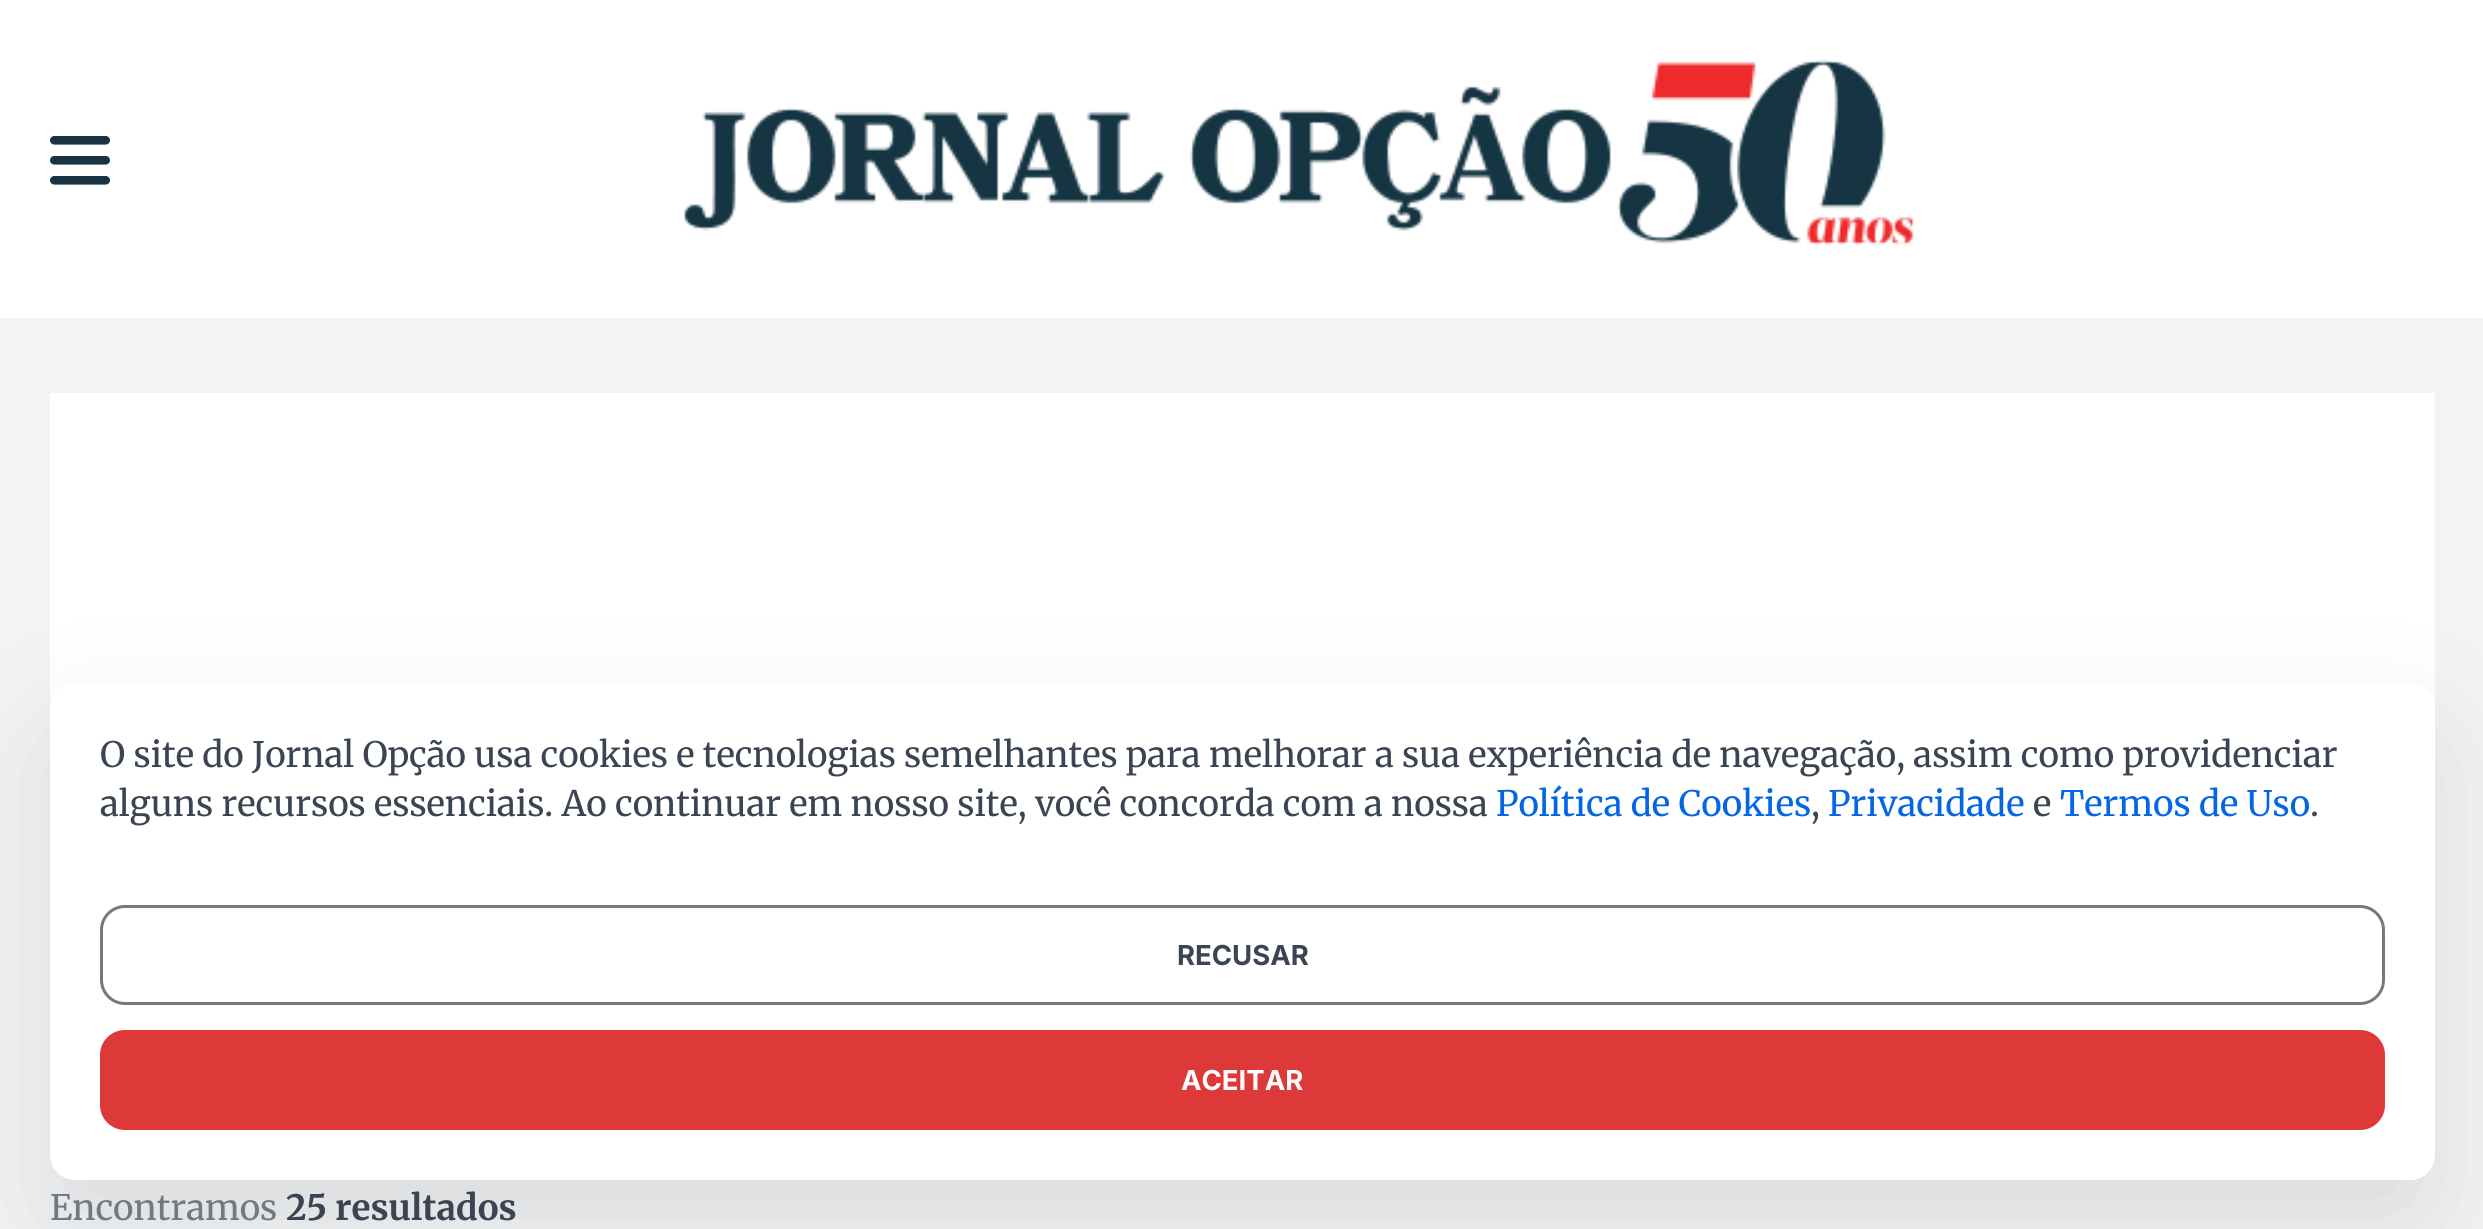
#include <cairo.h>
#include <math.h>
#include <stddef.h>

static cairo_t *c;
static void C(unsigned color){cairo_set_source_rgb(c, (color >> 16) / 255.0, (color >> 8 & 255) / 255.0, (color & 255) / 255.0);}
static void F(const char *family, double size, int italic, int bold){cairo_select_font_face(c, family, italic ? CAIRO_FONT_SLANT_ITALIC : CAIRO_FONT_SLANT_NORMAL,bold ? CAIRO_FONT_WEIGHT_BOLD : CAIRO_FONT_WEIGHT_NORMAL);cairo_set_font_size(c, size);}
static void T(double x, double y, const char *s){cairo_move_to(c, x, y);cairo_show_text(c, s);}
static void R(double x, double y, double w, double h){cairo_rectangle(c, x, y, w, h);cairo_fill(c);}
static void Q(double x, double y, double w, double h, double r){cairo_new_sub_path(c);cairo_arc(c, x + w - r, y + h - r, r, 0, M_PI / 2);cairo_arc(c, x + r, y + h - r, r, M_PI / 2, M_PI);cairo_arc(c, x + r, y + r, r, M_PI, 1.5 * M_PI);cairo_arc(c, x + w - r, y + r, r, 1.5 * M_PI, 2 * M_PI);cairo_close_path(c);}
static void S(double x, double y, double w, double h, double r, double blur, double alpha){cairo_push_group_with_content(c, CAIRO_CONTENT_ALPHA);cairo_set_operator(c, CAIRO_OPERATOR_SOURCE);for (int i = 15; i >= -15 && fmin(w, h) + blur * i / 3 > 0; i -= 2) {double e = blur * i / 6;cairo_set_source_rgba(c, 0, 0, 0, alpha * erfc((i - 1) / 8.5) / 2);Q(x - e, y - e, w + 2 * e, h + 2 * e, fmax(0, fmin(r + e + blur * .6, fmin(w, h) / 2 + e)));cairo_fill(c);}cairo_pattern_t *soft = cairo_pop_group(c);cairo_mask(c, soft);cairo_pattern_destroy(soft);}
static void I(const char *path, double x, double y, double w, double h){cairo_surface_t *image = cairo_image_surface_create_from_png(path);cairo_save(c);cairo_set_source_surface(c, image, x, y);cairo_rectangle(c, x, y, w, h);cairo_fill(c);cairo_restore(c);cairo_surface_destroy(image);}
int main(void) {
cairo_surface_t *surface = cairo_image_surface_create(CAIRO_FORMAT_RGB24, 2483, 1229);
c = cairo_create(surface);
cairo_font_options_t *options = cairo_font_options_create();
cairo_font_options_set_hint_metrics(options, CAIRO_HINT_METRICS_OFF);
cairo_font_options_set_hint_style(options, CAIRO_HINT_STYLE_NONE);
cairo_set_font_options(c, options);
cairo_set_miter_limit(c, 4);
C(0xf2f3f4);
cairo_paint(c);
C(0xffffff);
R(0,0,2483,318);
I("1.png",50,136,60,49);
I("2.png",684,59,1230,187);
R(50,393,2385,315);
C(0x000000);
S(50,733,2385,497,25,62.5,.1);
C(0xffffff);
Q(50,683,2385,497,25);
cairo_fill(c);
F("Merriweather",35,0,0);
C(0x3b4452);
T(100,767,"O site do Jornal Opção usa cookies e tecnologias semelhantes para melhorar a sua experiência de navegação, assim como providenciar");
T(100,816,"alguns recursos essenciais. Ao continuar em nosso site, você concorda com a nossa");
C(0x0465e7);
T(1496,816,"Política de Cookies");
C(0x3b4452);
T(1811,816,",");
C(0x0465e7);
T(1828,816,"Privacidade");
C(0x3b4452);
T(2033,816,"e");
C(0x0465e7);
T(2060,816,"Termos de Uso");
C(0x3b4452);
T(2310,816,".");
Q(101.5,906.5,2282,97,23.5);
C(0x717982);
cairo_set_line_width(c,3);
cairo_stroke(c);
F("Inter",27.5,0,1);
C(0x3b4452);
T(1177,965,"RECUSAR");
C(0xdd3939);
Q(100,1030,2285,100,25);
cairo_fill(c);
C(0xffffff);
T(1181,1090,"ACEITAR");
F("Merriweather",35,0,0);
C(0x717982);
T(50,1220,"Encontramos");
F("Merriweather",35,0,1);
C(0x3b4452);
T(286,1220,"25 resultados");
cairo_surface_write_to_png(surface, "o.png");
cairo_font_options_destroy(options);
cairo_destroy(c);
cairo_surface_destroy(surface);
return 0;
}
